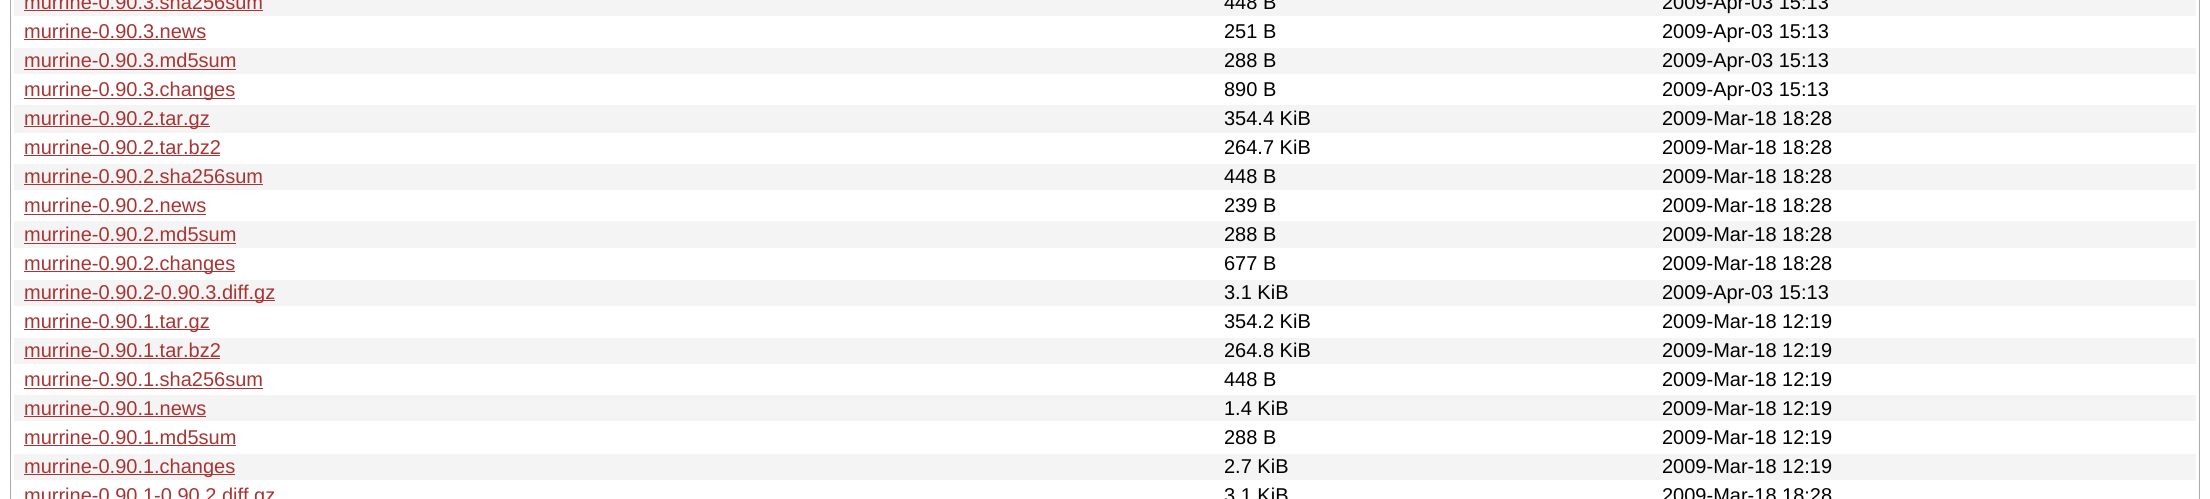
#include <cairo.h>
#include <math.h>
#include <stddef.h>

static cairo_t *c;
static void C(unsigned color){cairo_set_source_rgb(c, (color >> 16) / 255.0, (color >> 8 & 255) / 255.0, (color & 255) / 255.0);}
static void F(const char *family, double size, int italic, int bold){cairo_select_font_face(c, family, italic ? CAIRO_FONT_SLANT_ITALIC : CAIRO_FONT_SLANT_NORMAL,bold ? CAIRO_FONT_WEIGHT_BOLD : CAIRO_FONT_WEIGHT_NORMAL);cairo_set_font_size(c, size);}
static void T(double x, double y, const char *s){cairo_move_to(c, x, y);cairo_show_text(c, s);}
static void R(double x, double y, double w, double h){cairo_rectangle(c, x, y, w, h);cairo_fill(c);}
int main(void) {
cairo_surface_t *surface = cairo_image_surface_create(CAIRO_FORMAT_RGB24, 2210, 499);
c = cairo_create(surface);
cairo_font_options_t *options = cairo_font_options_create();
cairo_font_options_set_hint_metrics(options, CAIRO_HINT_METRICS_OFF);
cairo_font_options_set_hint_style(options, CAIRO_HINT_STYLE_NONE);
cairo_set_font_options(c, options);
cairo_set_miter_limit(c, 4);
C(0xffffff);
cairo_paint(c);
cairo_rectangle(c,10.5,-.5,2189,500);
C(0xaaaaaa);
cairo_set_line_width(c,1);
cairo_stroke(c);
C(0xf4f4f4);
R(14,0,2182,16);
F("Liberation Sans",20,0,0);
C(0xaa3333);
T(24,9,"murrine-0.90.3.sha256sum");
R(24,10,239,1);
C(0x000000);
T(1224,9,"448 B");
T(1662,9,"2009-Apr-03 15:13");
C(0xaa3333);
T(24,38,"murrine-0.90.3.news");
R(24,39,182,1);
C(0x000000);
T(1224,38,"251 B");
T(1662,38,"2009-Apr-03 15:13");
C(0xf4f4f4);
R(14,48,2182,26);
C(0xaa3333);
T(24,67,"murrine-0.90.3.md5sum");
R(24,69,212,1);
C(0x000000);
T(1224,67,"288 B");
T(1662,67,"2009-Apr-03 15:13");
C(0xaa3333);
R(24,98,211,1);
T(24,96,"murrine-0.90.3.changes");
C(0x000000);
T(1224,96,"890 B");
T(1662,96,"2009-Apr-03 15:13");
C(0xf4f4f4);
R(14,105,2182,28);
C(0xaa3333);
R(24,126,186,1);
T(24,125,"murrine-0.90.2.tar.gz");
C(0x000000);
T(1224,125,"354.4 KiB");
T(1662,125,"2009-Mar-18 18:28");
C(0xaa3333);
T(24,154,"murrine-0.90.2.tar.bz2");
R(24,155,196,1);
C(0x000000);
T(1224,154,"264.7 KiB");
T(1662,154,"2009-Mar-18 18:28");
C(0xf4f4f4);
R(14,164,2182,26);
C(0xaa3333);
T(24,183,"murrine-0.90.2.sha256sum");
R(24,184,239,1);
C(0x000000);
T(1224,183,"448 B");
T(1662,183,"2009-Mar-18 18:28");
C(0xaa3333);
T(24,212,"murrine-0.90.2.news");
R(24,214,182,1);
C(0x000000);
T(1224,212,"239 B");
T(1662,212,"2009-Mar-18 18:28");
C(0xf4f4f4);
R(14,221,2182,27);
C(0xaa3333);
T(24,241,"murrine-0.90.2.md5sum");
R(24,243,212,1);
C(0x000000);
T(1224,241,"288 B");
T(1662,241,"2009-Mar-18 18:28");
C(0xaa3333);
R(24,271,211,1);
T(24,270,"murrine-0.90.2.changes");
C(0x000000);
T(1224,270,"677 B");
T(1662,270,"2009-Mar-18 18:28");
C(0xf4f4f4);
R(14,280,2182,26);
C(0xaa3333);
R(24,300,251,1);
T(24,299,"murrine-0.90.2-0.90.3.diff.gz");
C(0x000000);
T(1224,299,"3.1 KiB");
T(1662,299,"2009-Apr-03 15:13");
C(0xaa3333);
R(24,329,186,1);
T(24,328,"murrine-0.90.1.tar.gz");
C(0x000000);
T(1224,328,"354.2 KiB");
T(1662,328,"2009-Mar-18 12:19");
C(0xf4f4f4);
R(14,338,2182,26);
C(0xaa3333);
T(24,357,"murrine-0.90.1.tar.bz2");
R(24,358,196,1);
C(0x000000);
T(1224,357,"264.8 KiB");
T(1662,357,"2009-Mar-18 12:19");
C(0xaa3333);
T(24,386,"murrine-0.90.1.sha256sum");
R(24,388,239,1);
C(0x000000);
T(1224,386,"448 B");
T(1662,386,"2009-Mar-18 12:19");
C(0xf4f4f4);
R(14,395,2182,26);
C(0xaa3333);
T(24,415,"murrine-0.90.1.news");
R(24,416,182,1);
C(0x000000);
T(1224,415,"1.4 KiB");
T(1662,415,"2009-Mar-18 12:19");
C(0xaa3333);
T(24,444,"murrine-0.90.1.md5sum");
R(24,445,212,1);
C(0x000000);
T(1224,444,"288 B");
T(1662,444,"2009-Mar-18 12:19");
C(0xf4f4f4);
R(14,454,2182,26);
C(0xaa3333);
R(24,474,211,1);
T(24,473,"murrine-0.90.1.changes");
C(0x000000);
T(1224,473,"2.7 KiB");
T(1662,473,"2009-Mar-18 12:19");
C(0xaa3333);
T(24,502,"murrine-0.90.1-0.90.2.diff.gz");
C(0x000000);
T(1224,502,"3.1 KiB");
T(1662,502,"2009-Mar-18 18:28");
cairo_surface_write_to_png(surface, "o.png");
cairo_font_options_destroy(options);
cairo_destroy(c);
cairo_surface_destroy(surface);
return 0;
}
